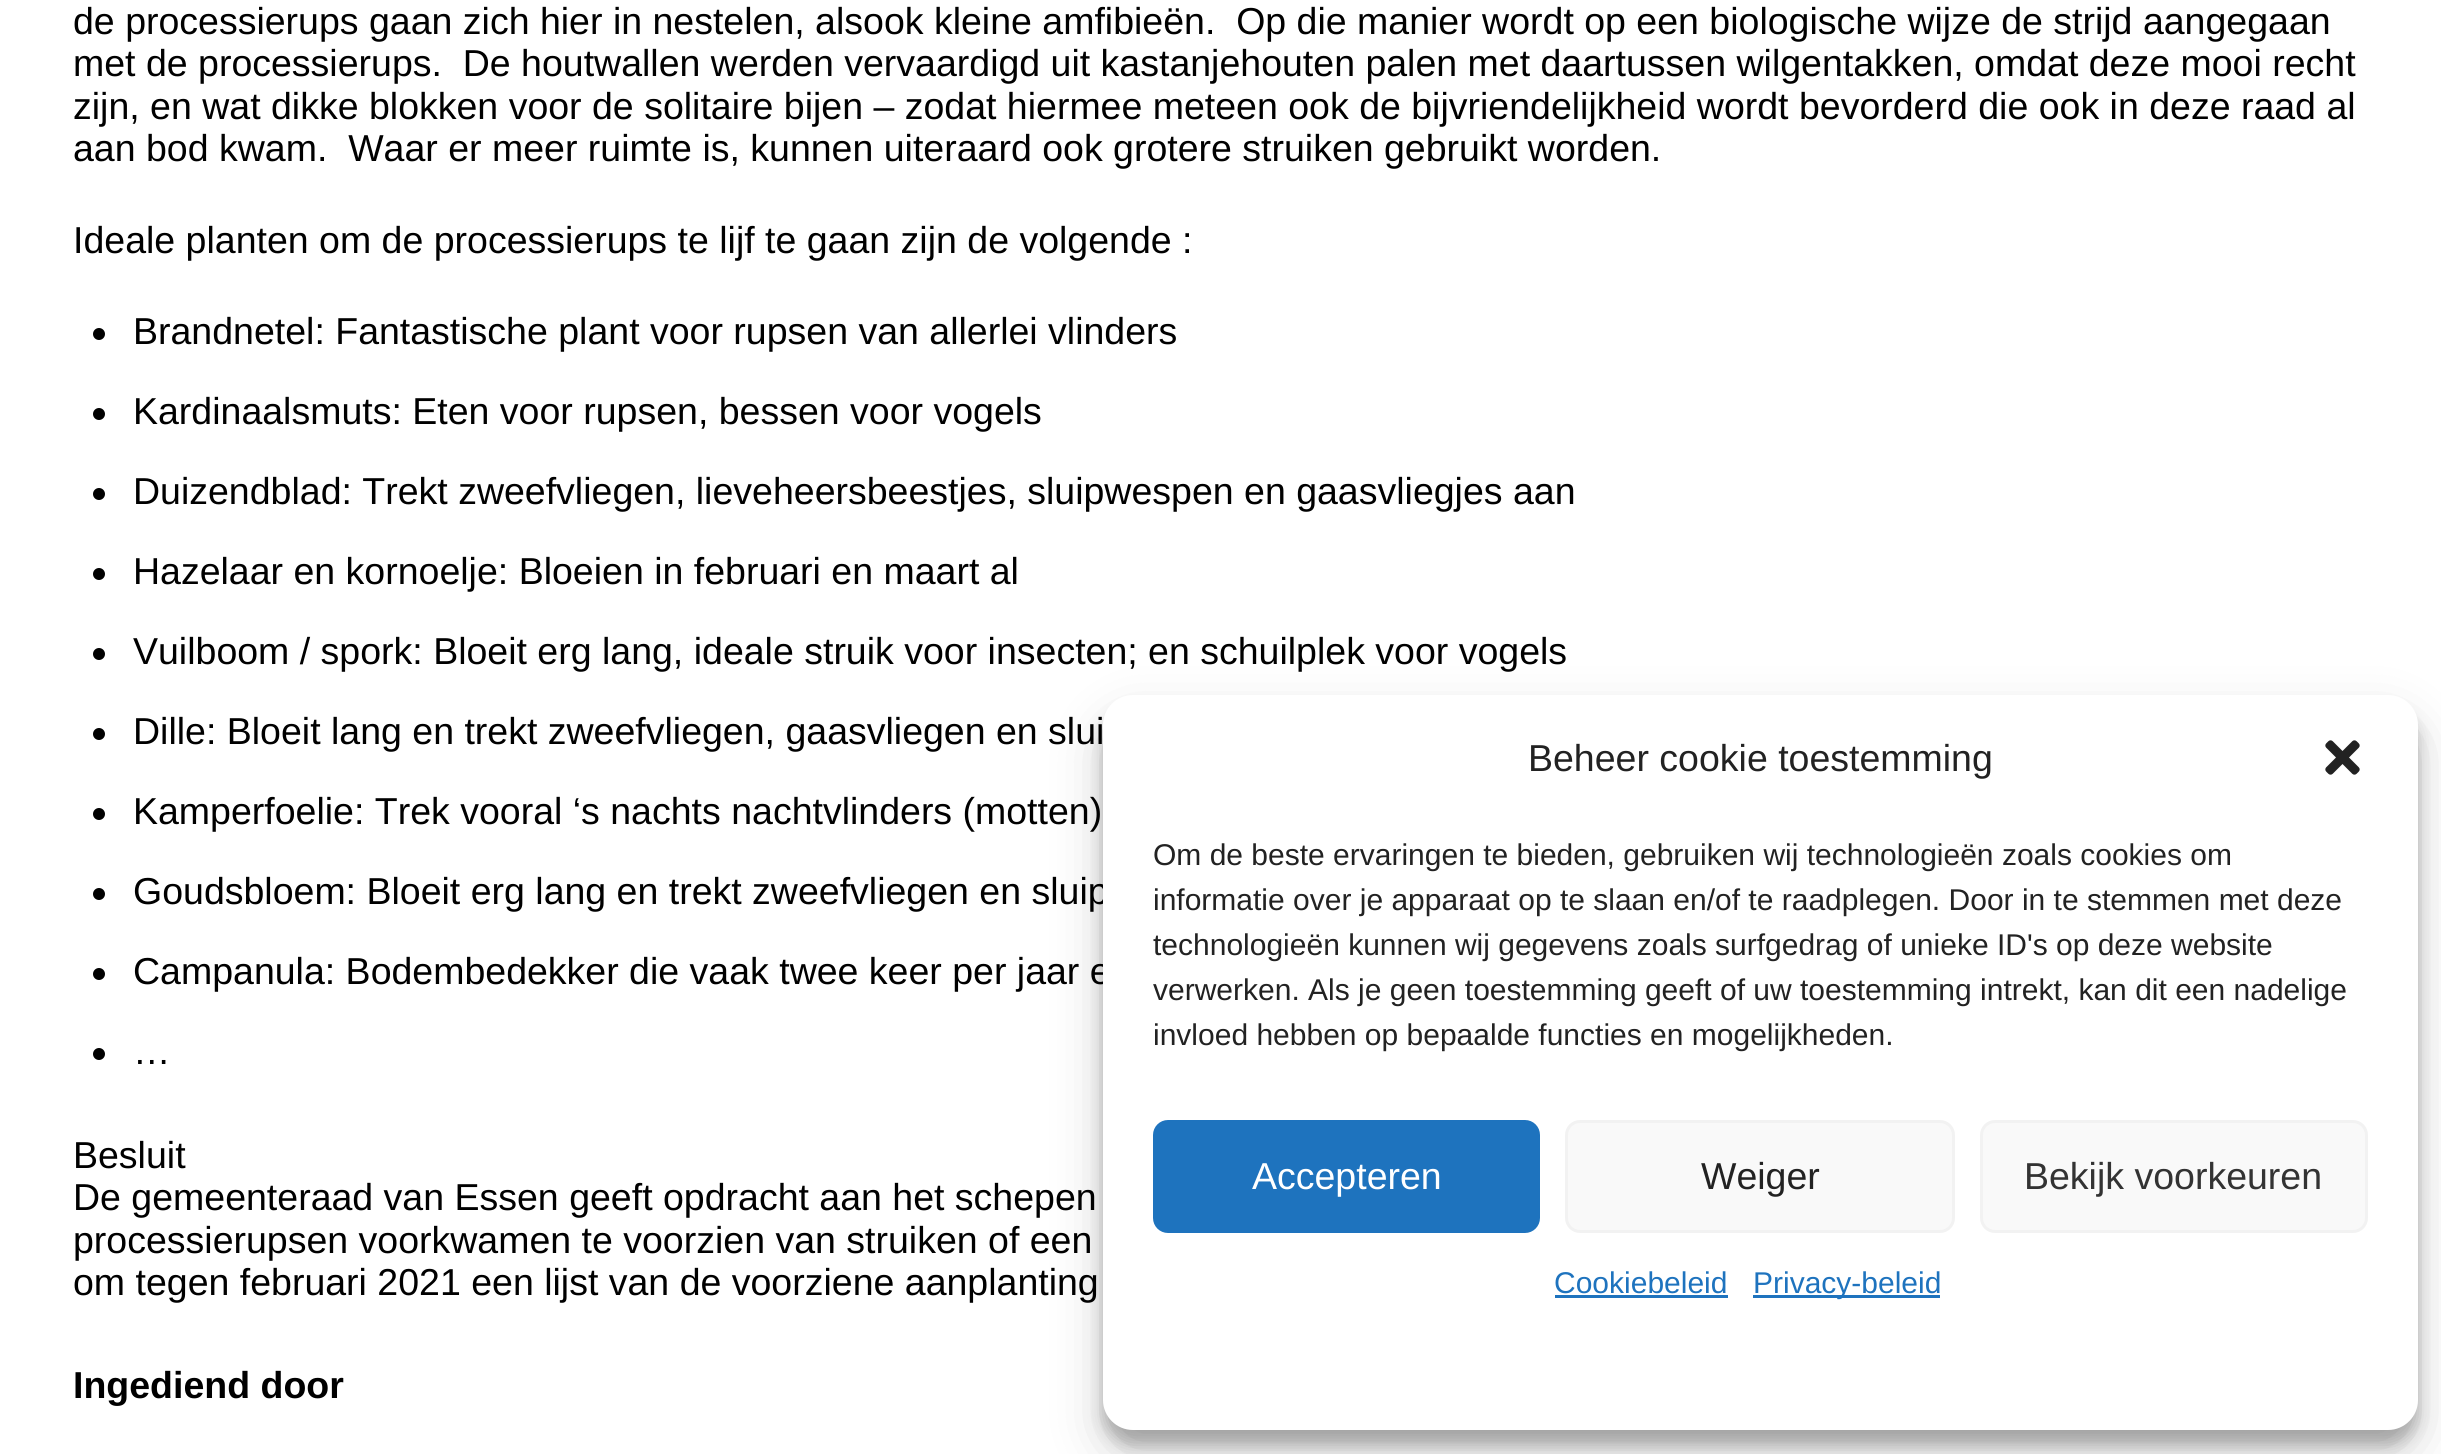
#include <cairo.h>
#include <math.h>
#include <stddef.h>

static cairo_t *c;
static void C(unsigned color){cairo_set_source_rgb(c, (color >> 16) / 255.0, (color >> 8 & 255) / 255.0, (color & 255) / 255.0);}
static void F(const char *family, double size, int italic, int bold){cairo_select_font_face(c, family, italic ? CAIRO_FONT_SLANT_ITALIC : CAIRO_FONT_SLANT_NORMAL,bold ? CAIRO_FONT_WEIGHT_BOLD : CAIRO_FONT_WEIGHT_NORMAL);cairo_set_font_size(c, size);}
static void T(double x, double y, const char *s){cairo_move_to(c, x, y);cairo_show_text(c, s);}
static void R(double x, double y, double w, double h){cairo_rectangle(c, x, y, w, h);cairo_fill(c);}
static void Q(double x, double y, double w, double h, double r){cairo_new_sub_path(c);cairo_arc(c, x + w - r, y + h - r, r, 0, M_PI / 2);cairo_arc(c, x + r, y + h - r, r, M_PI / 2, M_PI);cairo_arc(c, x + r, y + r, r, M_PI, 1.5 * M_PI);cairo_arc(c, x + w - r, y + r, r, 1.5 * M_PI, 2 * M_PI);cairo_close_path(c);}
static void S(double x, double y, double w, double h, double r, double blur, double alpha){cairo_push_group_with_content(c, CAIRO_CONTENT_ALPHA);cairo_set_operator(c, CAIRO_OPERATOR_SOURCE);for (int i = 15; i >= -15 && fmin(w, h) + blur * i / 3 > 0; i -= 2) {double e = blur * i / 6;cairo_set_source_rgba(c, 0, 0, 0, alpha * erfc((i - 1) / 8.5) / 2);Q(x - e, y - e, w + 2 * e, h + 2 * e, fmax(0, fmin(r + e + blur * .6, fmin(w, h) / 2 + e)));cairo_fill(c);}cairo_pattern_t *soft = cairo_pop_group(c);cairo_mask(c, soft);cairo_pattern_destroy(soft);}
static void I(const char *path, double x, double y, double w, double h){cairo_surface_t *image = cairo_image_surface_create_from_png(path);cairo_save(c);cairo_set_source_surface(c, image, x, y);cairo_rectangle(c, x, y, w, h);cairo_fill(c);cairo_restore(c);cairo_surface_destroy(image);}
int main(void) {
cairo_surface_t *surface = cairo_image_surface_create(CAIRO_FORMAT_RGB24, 2441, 1454);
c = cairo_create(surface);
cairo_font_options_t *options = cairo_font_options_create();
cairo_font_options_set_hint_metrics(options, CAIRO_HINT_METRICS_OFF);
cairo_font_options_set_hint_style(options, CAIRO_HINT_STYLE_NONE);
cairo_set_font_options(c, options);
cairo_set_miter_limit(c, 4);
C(0xffffff);
cairo_paint(c);
F("Liberation Sans",37.5,0,0);
C(0x000000);
T(73,34,"de processierups gaan zich hier in nestelen, alsook kleine amfibieën.  Op die manier wordt op een biologische wijze de strijd aangegaan");
T(73,76,"met de processierups.  De houtwallen werden vervaardigd uit kastanjehouten palen met daartussen wilgentakken, omdat deze mooi recht");
T(73,119,"zijn, en wat dikke blokken voor de solitaire bijen – zodat hiermee meteen ook de bijvriendelijkheid wordt bevorderd die ook in deze raad al");
T(73,161,"aan bod kwam.  Waar er meer ruimte is, kunnen uiteraard ook grotere struiken gebruikt worden.");
T(73,253,"Ideale planten om de processierups te lijf te gaan zijn de volgende :");
cairo_new_path(c);
cairo_arc(c,99,334,6,0,2 * M_PI);
cairo_fill(c);
T(133,344,"Brandnetel: Fantastische plant voor rupsen van allerlei vlinders");
cairo_new_path(c);
cairo_arc(c,99,414,6,0,2 * M_PI);
cairo_fill(c);
T(133,424,"Kardinaalsmuts: Eten voor rupsen, bessen voor vogels");
cairo_new_path(c);
cairo_arc(c,99,494,6,0,2 * M_PI);
cairo_fill(c);
T(133,504,"Duizendblad: Trekt zweefvliegen, lieveheersbeestjes, sluipwespen en gaasvliegjes aan");
cairo_new_path(c);
cairo_arc(c,99,574,6,0,2 * M_PI);
cairo_fill(c);
T(133,584,"Hazelaar en kornoelje: Bloeien in februari en maart al");
cairo_new_path(c);
cairo_arc(c,99,654,6,0,2 * M_PI);
cairo_fill(c);
T(133,664,"Vuilboom / spork: Bloeit erg lang, ideale struik voor insecten; en schuilplek voor vogels");
cairo_new_path(c);
cairo_arc(c,99,734,6,0,2 * M_PI);
cairo_fill(c);
T(133,744,"Dille: Bloeit lang en trekt zweefvliegen, gaasvliegen en slui");
cairo_new_path(c);
cairo_arc(c,99,814,6,0,2 * M_PI);
cairo_fill(c);
T(133,824,"Kamperfoelie: Trek vooral ‘s nachts nachtvlinders (motten)");
cairo_new_path(c);
cairo_arc(c,99,894,6,0,2 * M_PI);
cairo_fill(c);
T(133,904,"Goudsbloem: Bloeit erg lang en trekt zweefvliegen en sluip");
cairo_new_path(c);
cairo_arc(c,99,974,6,0,2 * M_PI);
cairo_fill(c);
T(133,984,"Campanula: Bodembedekker die vaak twee keer per jaar e");
cairo_new_path(c);
cairo_arc(c,99,1054,6,0,2 * M_PI);
cairo_fill(c);
T(133,1064,"…");
T(73,1168,"Besluit");
T(73,1210,"De gemeenteraad van Essen geeft opdracht aan het schepen");
T(73,1253,"processierupsen voorkwamen te voorzien van struiken of een");
T(73,1295,"om tegen februari 2021 een lijst van de voorziene aanplanting");
F("Liberation Sans",37.5,0,1);
T(73,1398,"Ingediend door");
C(0x000000);
S(1103,710,1315,735,30,7.5,.23);
S(1103,720,1315,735,30,25,.19);
C(0xffffff);
Q(1103,695,1315,735,30);
cairo_fill(c);
F("Liberation Sans",37.5,0,0);
C(0x222222);
T(1528,771,"Beheer cookie toestemming");
I("1.png",2325,740,35,35);
F("Liberation Sans",30,0,0);
T(1153,865,"Om de beste ervaringen te bieden, gebruiken wij technologieën zoals cookies om");
T(1153,910,"informatie over je apparaat op te slaan en/of te raadplegen. Door in te stemmen met deze");
T(1153,955,"technologieën kunnen wij gegevens zoals surfgedrag of unieke ID's op deze website");
T(1153,1000,"verwerken. Als je geen toestemming geeft of uw toestemming intrekt, kan dit een nadelige");
T(1153,1045,"invloed hebben op bepaalde functies en mogelijkheden.");
C(0x1e73be);
Q(1154.5,1121.5,384,110,13.5);
cairo_fill_preserve(c);
cairo_set_line_width(c,3);
cairo_stroke(c);
F("Liberation Sans",37.5,0,0);
C(0xffffff);
T(1252,1189,"Accepteren");
C(0xf9f9f9);
Q(1566.5,1121.5,387,110,13.5);
cairo_fill_preserve(c);
C(0xf2f2f2);
cairo_stroke(c);
C(0x222222);
T(1701,1189,"Weiger");
C(0xf9f9f9);
Q(1981.5,1121.5,385,110,13.5);
cairo_fill_preserve(c);
C(0xf2f2f2);
cairo_stroke(c);
C(0x333333);
T(2024,1189,"Bekijk voorkeuren");
F("Liberation Sans",30,0,0);
C(0x1e73be);
T(1554,1293,"Cookiebeleid");
R(1555,1295,173,3);
R(1753,1295,187,3);
T(1753,1293,"Privacy-beleid");
cairo_surface_write_to_png(surface, "o.png");
cairo_font_options_destroy(options);
cairo_destroy(c);
cairo_surface_destroy(surface);
return 0;
}
